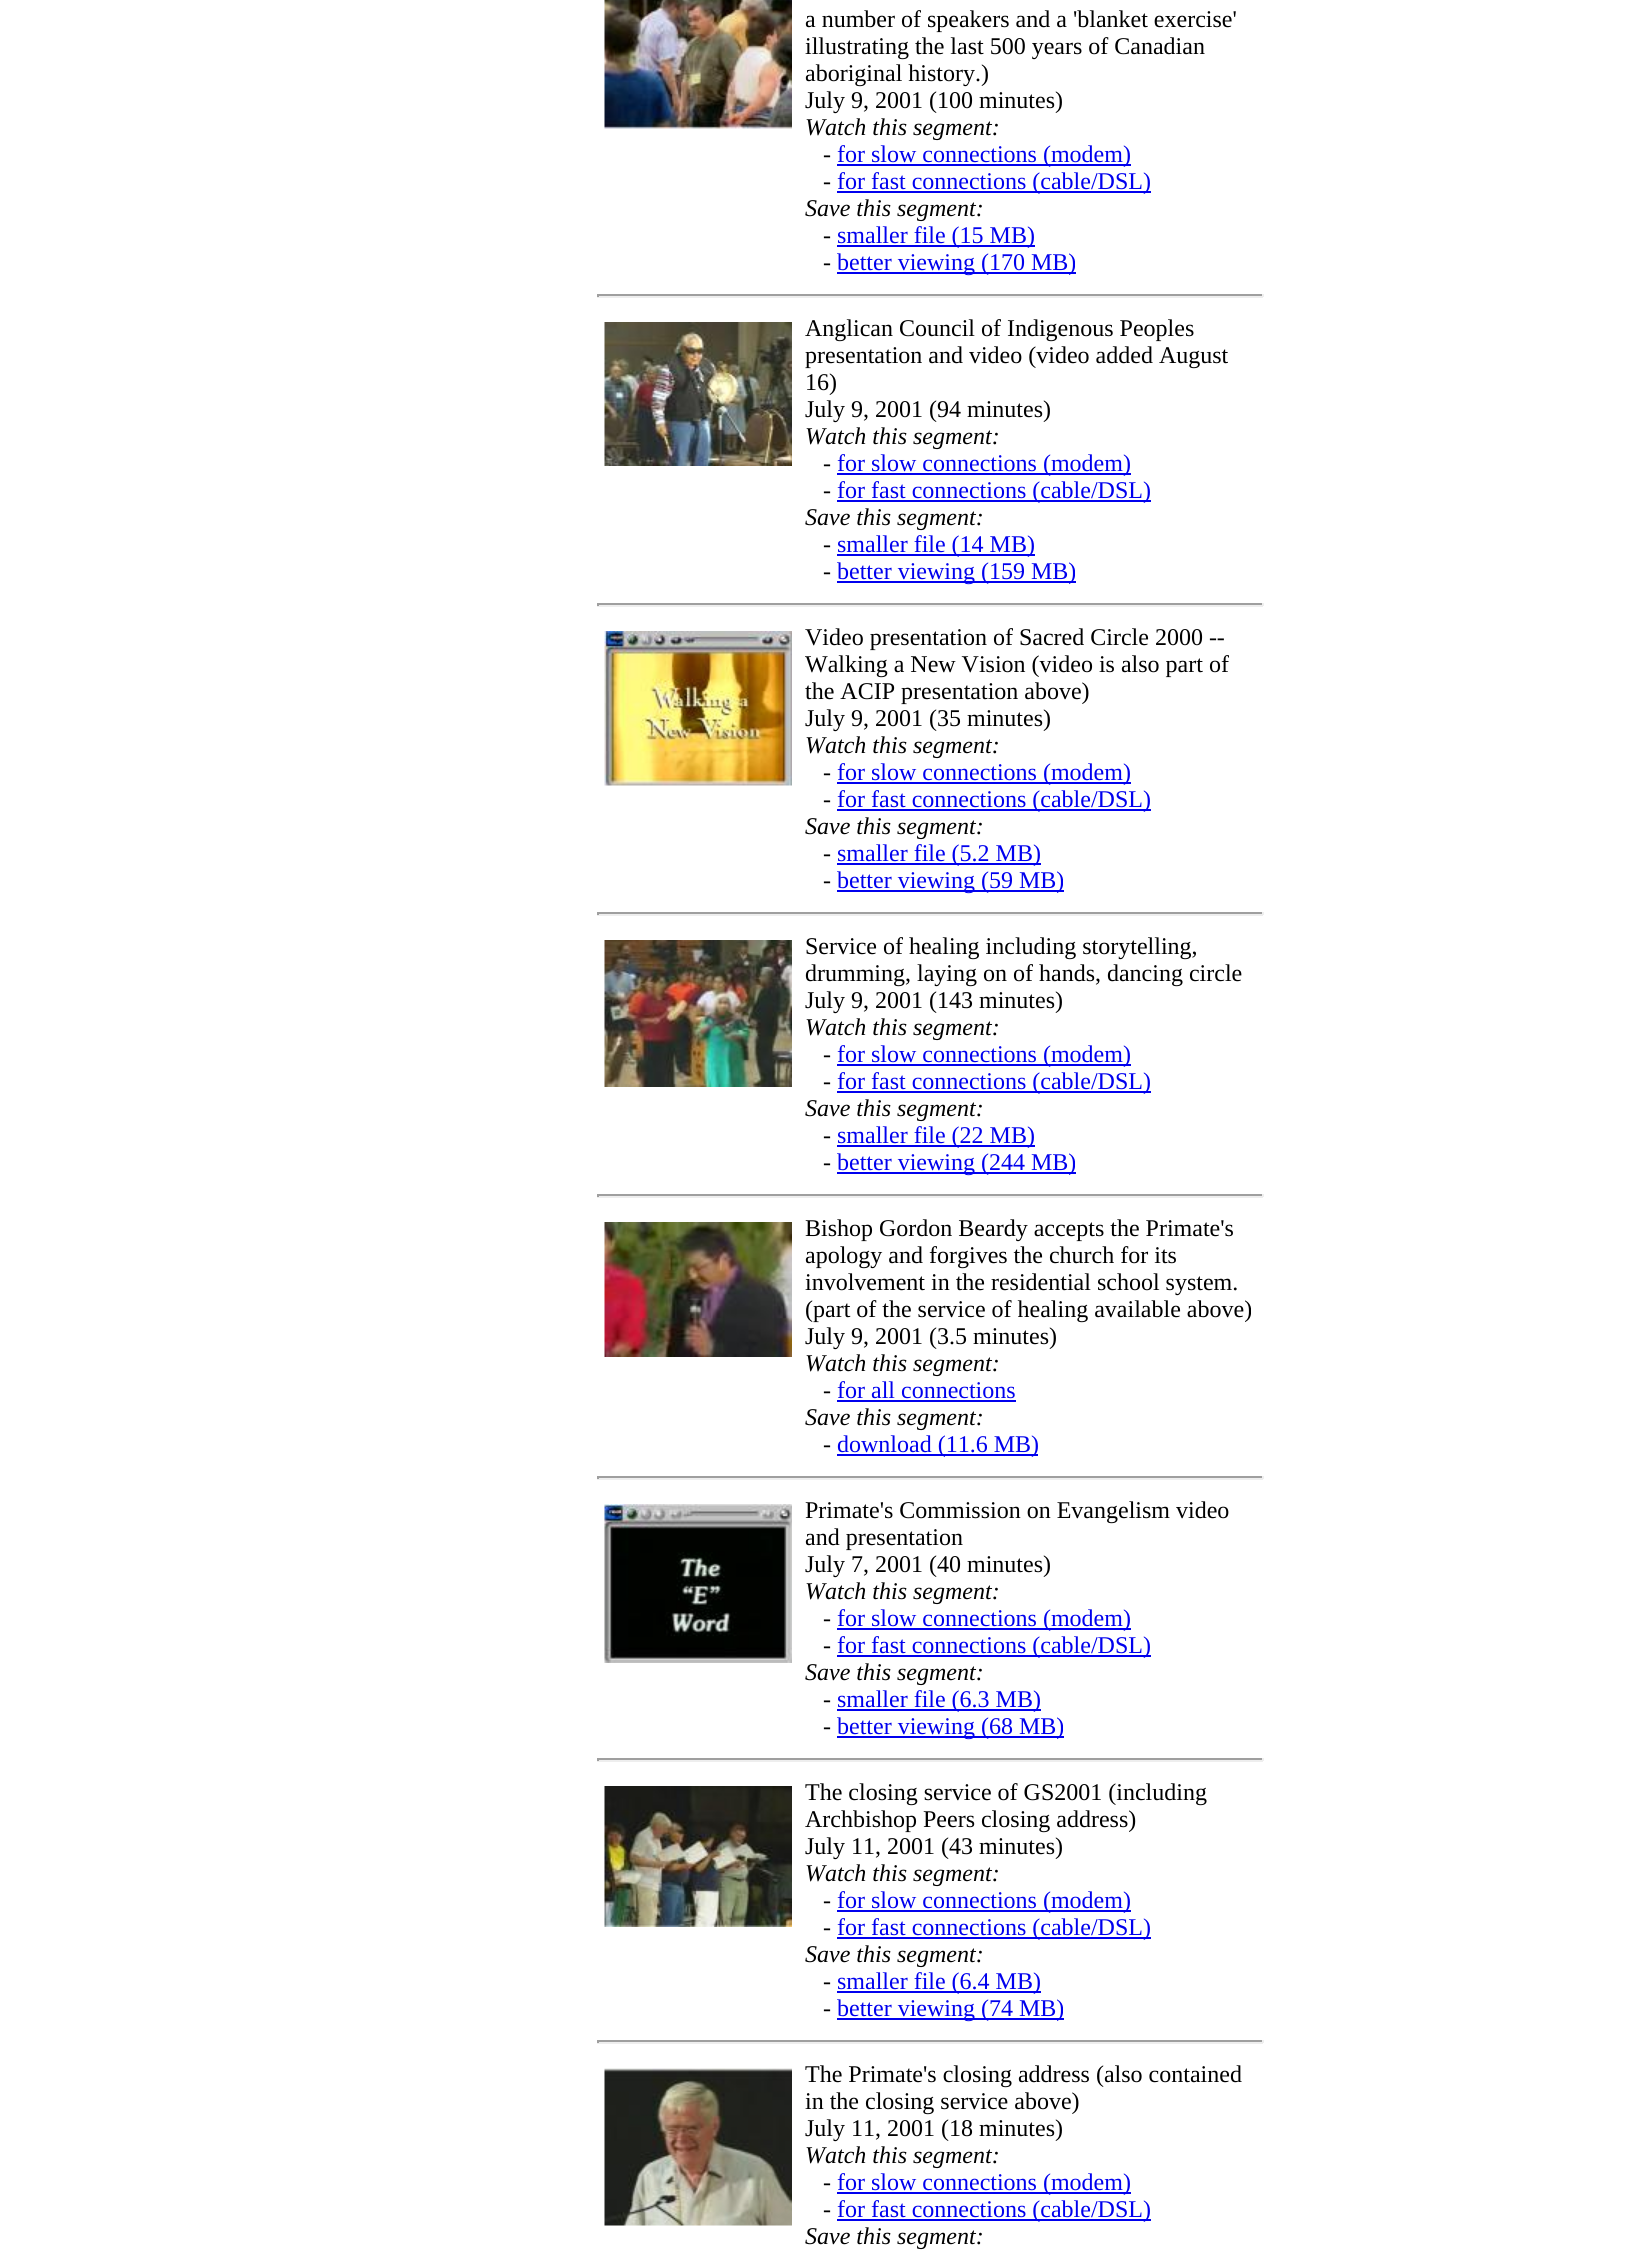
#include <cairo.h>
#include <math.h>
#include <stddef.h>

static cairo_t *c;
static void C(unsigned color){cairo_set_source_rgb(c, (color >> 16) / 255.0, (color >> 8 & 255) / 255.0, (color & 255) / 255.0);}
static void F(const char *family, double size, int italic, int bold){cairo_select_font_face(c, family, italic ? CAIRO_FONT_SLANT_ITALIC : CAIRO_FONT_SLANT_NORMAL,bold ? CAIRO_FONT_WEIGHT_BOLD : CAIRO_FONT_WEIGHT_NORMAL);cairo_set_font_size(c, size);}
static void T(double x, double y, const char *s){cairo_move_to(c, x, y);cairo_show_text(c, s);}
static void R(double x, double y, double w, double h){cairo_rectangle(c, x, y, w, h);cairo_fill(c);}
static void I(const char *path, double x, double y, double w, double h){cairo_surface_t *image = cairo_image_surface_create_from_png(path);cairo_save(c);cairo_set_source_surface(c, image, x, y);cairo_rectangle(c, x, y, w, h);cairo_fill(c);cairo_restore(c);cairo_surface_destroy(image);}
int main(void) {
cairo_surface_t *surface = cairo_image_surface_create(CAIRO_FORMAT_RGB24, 1642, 2265);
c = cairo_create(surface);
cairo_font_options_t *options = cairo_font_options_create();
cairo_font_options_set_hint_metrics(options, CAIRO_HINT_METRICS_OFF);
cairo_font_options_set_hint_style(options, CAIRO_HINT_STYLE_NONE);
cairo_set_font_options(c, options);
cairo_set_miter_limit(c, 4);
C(0xffffff);
cairo_paint(c);
I("1.png",604,0,188,129);
F("Liberation Serif",24,0,0);
C(0x000000);
T(805,27,"a number of speakers and a 'blanket exercise'");
T(805,54,"illustrating the last 500 years of Canadian");
T(805,81,"aboriginal history.)");
T(805,108,"July 9, 2001 (100 minutes)");
F("Liberation Serif",24,1,0);
T(805,135,"Watch this segment:");
F("Liberation Serif",24,0,0);
T(823,162,"-");
C(0x0000ee);
R(837,164,294,2);
T(837,162,"for slow connections (modem)");
C(0x000000);
T(823,189,"-");
C(0x0000ee);
R(837,191,314,2);
T(837,189,"for fast connections (cable/DSL)");
F("Liberation Serif",24,1,0);
C(0x000000);
T(805,216,"Save this segment:");
F("Liberation Serif",24,0,0);
T(823,243,"-");
C(0x0000ee);
R(837,245,198,2);
T(837,243,"smaller file (15 MB)");
C(0x000000);
T(823,270,"-");
C(0x0000ee);
R(837,272,239,2);
T(837,270,"better viewing (170 MB)");
C(0x9f9f9f);
R(597,294,666,2);
C(0xeeeeee);
R(1262,294,2,3);
R(597,296,666,2);
C(0x9f9f9f);
R(597,294,2,3);
I("2.png",604,322,188,144);
C(0x000000);
T(805,336,"Anglican Council of Indigenous Peoples");
T(805,363,"presentation and video (video added August");
T(805,390,"16)");
T(805,417,"July 9, 2001 (94 minutes)");
F("Liberation Serif",24,1,0);
T(805,444,"Watch this segment:");
F("Liberation Serif",24,0,0);
T(823,471,"-");
C(0x0000ee);
R(837,473,294,2);
T(837,471,"for slow connections (modem)");
C(0x000000);
T(823,498,"-");
C(0x0000ee);
R(837,500,314,2);
T(837,498,"for fast connections (cable/DSL)");
F("Liberation Serif",24,1,0);
C(0x000000);
T(805,525,"Save this segment:");
F("Liberation Serif",24,0,0);
T(823,552,"-");
C(0x0000ee);
R(837,554,198,2);
T(837,552,"smaller file (14 MB)");
C(0x000000);
T(823,579,"-");
C(0x0000ee);
R(837,581,239,2);
T(837,579,"better viewing (159 MB)");
C(0x9f9f9f);
R(597,603,666,2);
C(0xeeeeee);
R(1262,603,2,3);
R(597,605,666,2);
C(0x9f9f9f);
R(597,603,2,3);
I("3.png",604,631,188,155);
C(0x000000);
T(805,645,"Video presentation of Sacred Circle 2000 --");
T(805,672,"Walking a New Vision (video is also part of");
T(805,699,"the ACIP presentation above)");
T(805,726,"July 9, 2001 (35 minutes)");
F("Liberation Serif",24,1,0);
T(805,753,"Watch this segment:");
F("Liberation Serif",24,0,0);
T(823,780,"-");
C(0x0000ee);
R(837,782,294,2);
T(837,780,"for slow connections (modem)");
C(0x000000);
T(823,807,"-");
C(0x0000ee);
R(837,809,314,2);
T(837,807,"for fast connections (cable/DSL)");
F("Liberation Serif",24,1,0);
C(0x000000);
T(805,834,"Save this segment:");
F("Liberation Serif",24,0,0);
T(823,861,"-");
C(0x0000ee);
R(837,863,204,2);
T(837,861,"smaller file (5.2 MB)");
C(0x000000);
T(823,888,"-");
C(0x0000ee);
R(837,890,227,2);
T(837,888,"better viewing (59 MB)");
C(0x9f9f9f);
R(597,912,666,2);
C(0xeeeeee);
R(1262,912,2,3);
R(597,914,666,2);
C(0x9f9f9f);
R(597,912,2,3);
I("4.png",604,940,188,147);
C(0x000000);
T(805,954,"Service of healing including storytelling,");
T(805,981,"drumming, laying on of hands, dancing circle");
T(805,1008,"July 9, 2001 (143 minutes)");
F("Liberation Serif",24,1,0);
T(805,1035,"Watch this segment:");
F("Liberation Serif",24,0,0);
T(823,1062,"-");
C(0x0000ee);
R(837,1064,294,2);
T(837,1062,"for slow connections (modem)");
C(0x000000);
T(823,1089,"-");
C(0x0000ee);
R(837,1091,314,2);
T(837,1089,"for fast connections (cable/DSL)");
F("Liberation Serif",24,1,0);
C(0x000000);
T(805,1116,"Save this segment:");
F("Liberation Serif",24,0,0);
T(823,1143,"-");
C(0x0000ee);
R(837,1145,198,2);
T(837,1143,"smaller file (22 MB)");
C(0x000000);
T(823,1170,"-");
C(0x0000ee);
R(837,1172,239,2);
T(837,1170,"better viewing (244 MB)");
C(0x9f9f9f);
R(597,1194,666,2);
C(0xeeeeee);
R(1262,1194,2,3);
R(597,1196,666,2);
C(0x9f9f9f);
R(597,1194,2,3);
I("5.png",604,1222,188,135);
C(0x000000);
T(805,1236,"Bishop Gordon Beardy accepts the Primate's");
T(805,1263,"apology and forgives the church for its");
T(805,1290,"involvement in the residential school system.");
T(805,1317,"(part of the service of healing available above)");
T(805,1344,"July 9, 2001 (3.5 minutes)");
F("Liberation Serif",24,1,0);
T(805,1371,"Watch this segment:");
F("Liberation Serif",24,0,0);
T(823,1398,"-");
C(0x0000ee);
T(837,1398,"for all connections");
R(837,1400,179,2);
F("Liberation Serif",24,1,0);
C(0x000000);
T(805,1425,"Save this segment:");
F("Liberation Serif",24,0,0);
T(823,1452,"-");
C(0x0000ee);
R(837,1454,201,2);
T(837,1452,"download (11.6 MB)");
C(0x9f9f9f);
R(597,1476,666,2);
C(0xeeeeee);
R(1262,1476,2,3);
R(597,1478,666,2);
C(0x9f9f9f);
R(597,1476,2,3);
I("6.png",604,1504,188,159);
C(0x000000);
T(805,1518,"Primate's Commission on Evangelism video");
T(805,1545,"and presentation");
T(805,1572,"July 7, 2001 (40 minutes)");
F("Liberation Serif",24,1,0);
T(805,1599,"Watch this segment:");
F("Liberation Serif",24,0,0);
T(823,1626,"-");
C(0x0000ee);
R(837,1628,294,2);
T(837,1626,"for slow connections (modem)");
C(0x000000);
T(823,1653,"-");
C(0x0000ee);
R(837,1655,314,2);
T(837,1653,"for fast connections (cable/DSL)");
F("Liberation Serif",24,1,0);
C(0x000000);
T(805,1680,"Save this segment:");
F("Liberation Serif",24,0,0);
T(823,1707,"-");
C(0x0000ee);
R(837,1709,204,2);
T(837,1707,"smaller file (6.3 MB)");
C(0x000000);
T(823,1734,"-");
C(0x0000ee);
R(837,1736,227,2);
T(837,1734,"better viewing (68 MB)");
C(0x9f9f9f);
R(597,1758,666,2);
C(0xeeeeee);
R(1262,1758,2,3);
R(597,1760,666,2);
C(0x9f9f9f);
R(597,1758,2,3);
I("7.png",604,1786,188,141);
C(0x000000);
T(805,1800,"The closing service of GS2001 (including");
T(805,1827,"Archbishop Peers closing address)");
T(805,1854,"July 11, 2001 (43 minutes)");
F("Liberation Serif",24,1,0);
T(805,1881,"Watch this segment:");
F("Liberation Serif",24,0,0);
T(823,1908,"-");
C(0x0000ee);
R(837,1910,294,2);
T(837,1908,"for slow connections (modem)");
C(0x000000);
T(823,1935,"-");
C(0x0000ee);
R(837,1937,314,2);
T(837,1935,"for fast connections (cable/DSL)");
F("Liberation Serif",24,1,0);
C(0x000000);
T(805,1962,"Save this segment:");
F("Liberation Serif",24,0,0);
T(823,1989,"-");
C(0x0000ee);
R(837,1991,204,2);
T(837,1989,"smaller file (6.4 MB)");
C(0x000000);
T(823,2016,"-");
C(0x0000ee);
R(837,2018,227,2);
T(837,2016,"better viewing (74 MB)");
C(0x9f9f9f);
R(597,2040,666,2);
C(0xeeeeee);
R(1262,2040,2,3);
R(597,2042,666,2);
C(0x9f9f9f);
R(597,2040,2,3);
I("8.png",604,2068,188,158);
C(0x000000);
T(805,2082,"The Primate's closing address (also contained");
T(805,2109,"in the closing service above)");
T(805,2136,"July 11, 2001 (18 minutes)");
F("Liberation Serif",24,1,0);
T(805,2163,"Watch this segment:");
F("Liberation Serif",24,0,0);
T(823,2190,"-");
C(0x0000ee);
R(837,2192,294,2);
T(837,2190,"for slow connections (modem)");
C(0x000000);
T(823,2217,"-");
C(0x0000ee);
R(837,2219,314,2);
T(837,2217,"for fast connections (cable/DSL)");
F("Liberation Serif",24,1,0);
C(0x000000);
T(805,2244,"Save this segment:");
cairo_surface_write_to_png(surface, "o.png");
cairo_font_options_destroy(options);
cairo_destroy(c);
cairo_surface_destroy(surface);
return 0;
}
